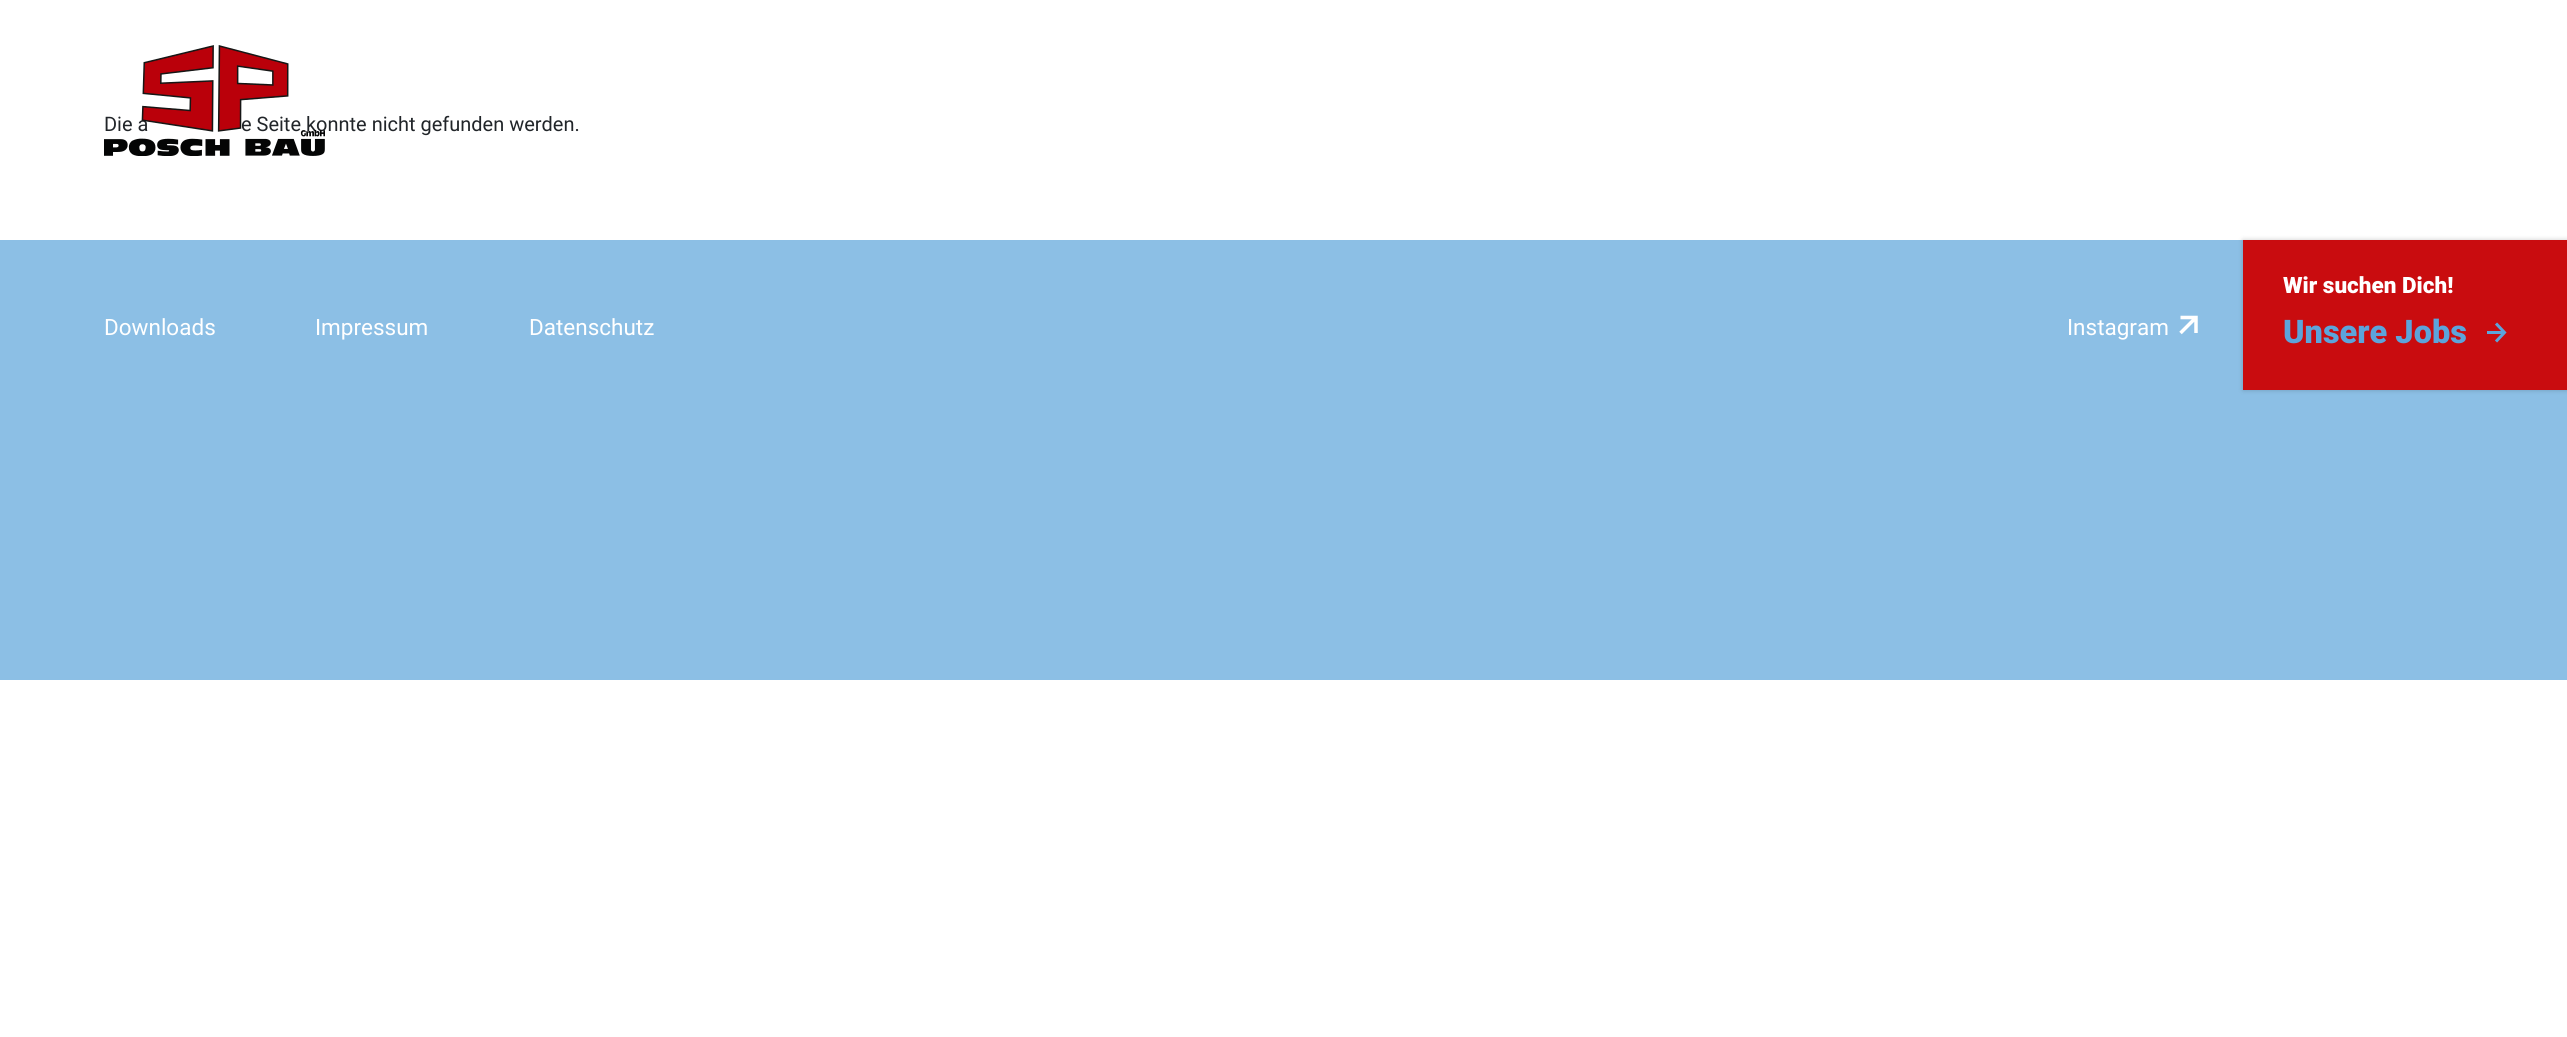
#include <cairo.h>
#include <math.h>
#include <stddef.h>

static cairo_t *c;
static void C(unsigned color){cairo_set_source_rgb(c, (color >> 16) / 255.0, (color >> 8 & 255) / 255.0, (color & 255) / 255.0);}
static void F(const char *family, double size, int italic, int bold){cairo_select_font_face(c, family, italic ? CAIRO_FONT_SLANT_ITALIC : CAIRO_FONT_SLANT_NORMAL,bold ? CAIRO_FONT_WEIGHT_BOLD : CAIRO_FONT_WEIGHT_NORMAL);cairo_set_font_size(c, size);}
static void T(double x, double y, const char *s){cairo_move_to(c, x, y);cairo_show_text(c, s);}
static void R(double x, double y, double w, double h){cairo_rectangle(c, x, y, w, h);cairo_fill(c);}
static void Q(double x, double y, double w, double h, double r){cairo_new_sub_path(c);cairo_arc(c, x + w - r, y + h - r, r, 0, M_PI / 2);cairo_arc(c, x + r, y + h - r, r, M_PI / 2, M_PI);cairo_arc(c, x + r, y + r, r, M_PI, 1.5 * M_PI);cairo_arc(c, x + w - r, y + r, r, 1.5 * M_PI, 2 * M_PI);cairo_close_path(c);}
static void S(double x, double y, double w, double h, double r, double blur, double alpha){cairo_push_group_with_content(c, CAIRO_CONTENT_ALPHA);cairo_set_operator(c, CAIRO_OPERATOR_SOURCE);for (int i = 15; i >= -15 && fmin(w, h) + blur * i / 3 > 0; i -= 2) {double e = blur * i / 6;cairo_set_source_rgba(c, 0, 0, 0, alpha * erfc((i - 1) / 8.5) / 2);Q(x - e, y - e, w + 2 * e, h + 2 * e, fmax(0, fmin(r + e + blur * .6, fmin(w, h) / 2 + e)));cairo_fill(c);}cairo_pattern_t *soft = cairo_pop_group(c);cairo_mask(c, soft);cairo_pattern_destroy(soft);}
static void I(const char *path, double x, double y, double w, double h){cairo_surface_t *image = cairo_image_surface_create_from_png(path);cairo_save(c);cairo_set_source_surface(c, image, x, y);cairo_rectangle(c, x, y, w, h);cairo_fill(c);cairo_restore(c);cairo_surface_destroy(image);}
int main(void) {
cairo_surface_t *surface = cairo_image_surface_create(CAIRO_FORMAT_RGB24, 2567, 1037);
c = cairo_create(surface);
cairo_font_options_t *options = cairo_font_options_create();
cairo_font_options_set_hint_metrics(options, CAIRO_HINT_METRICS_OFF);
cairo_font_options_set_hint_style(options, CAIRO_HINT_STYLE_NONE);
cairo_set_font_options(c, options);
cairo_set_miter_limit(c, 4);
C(0xffffff);
cairo_paint(c);
F("Roboto",20,0,0);
C(0x212529);
T(104,131,"Die a");
T(241,131,"e Seite konnte nicht gefunden werden.");
I("1.png",104,45,221,111);
C(0x8cbfe5);
R(0,240,2567,440);
F("Roboto",22.5,0,0);
C(0xffffff);
T(104,335,"Downloads");
T(315,335,"Impressum");
T(529,335,"Datenschutz");
T(2067,335,"Instagram");
cairo_new_path(c);
cairo_move_to(c,2180.5,317.5);
cairo_line_to(c,2196,317.5);
cairo_line_to(c,2196,333);
cairo_move_to(c,2196,317.5);
cairo_line_to(c,2180.5,333);
cairo_set_line_width(c,3.5);
cairo_stroke(c);
C(0x000000);
S(2243,240,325,150,0,2.5,.2);
C(0xc90c0f);
R(2243,240,324,150);
F("Roboto Black",22.5,0,0);
C(0xffffff);
T(2283,293,"Wir suchen Dich!");
F("Roboto Black",32.5,0,0);
C(0x5ca4db);
T(2283,343,"Unsere Jobs");
cairo_new_path(c);
cairo_move_to(c,2496,323.5);
cairo_line_to(c,2504.5,332.5);
cairo_line_to(c,2496,341.5);
cairo_set_line_width(c,3);
cairo_stroke(c);
R(2487,331,18,3);
cairo_surface_write_to_png(surface, "o.png");
cairo_font_options_destroy(options);
cairo_destroy(c);
cairo_surface_destroy(surface);
return 0;
}
